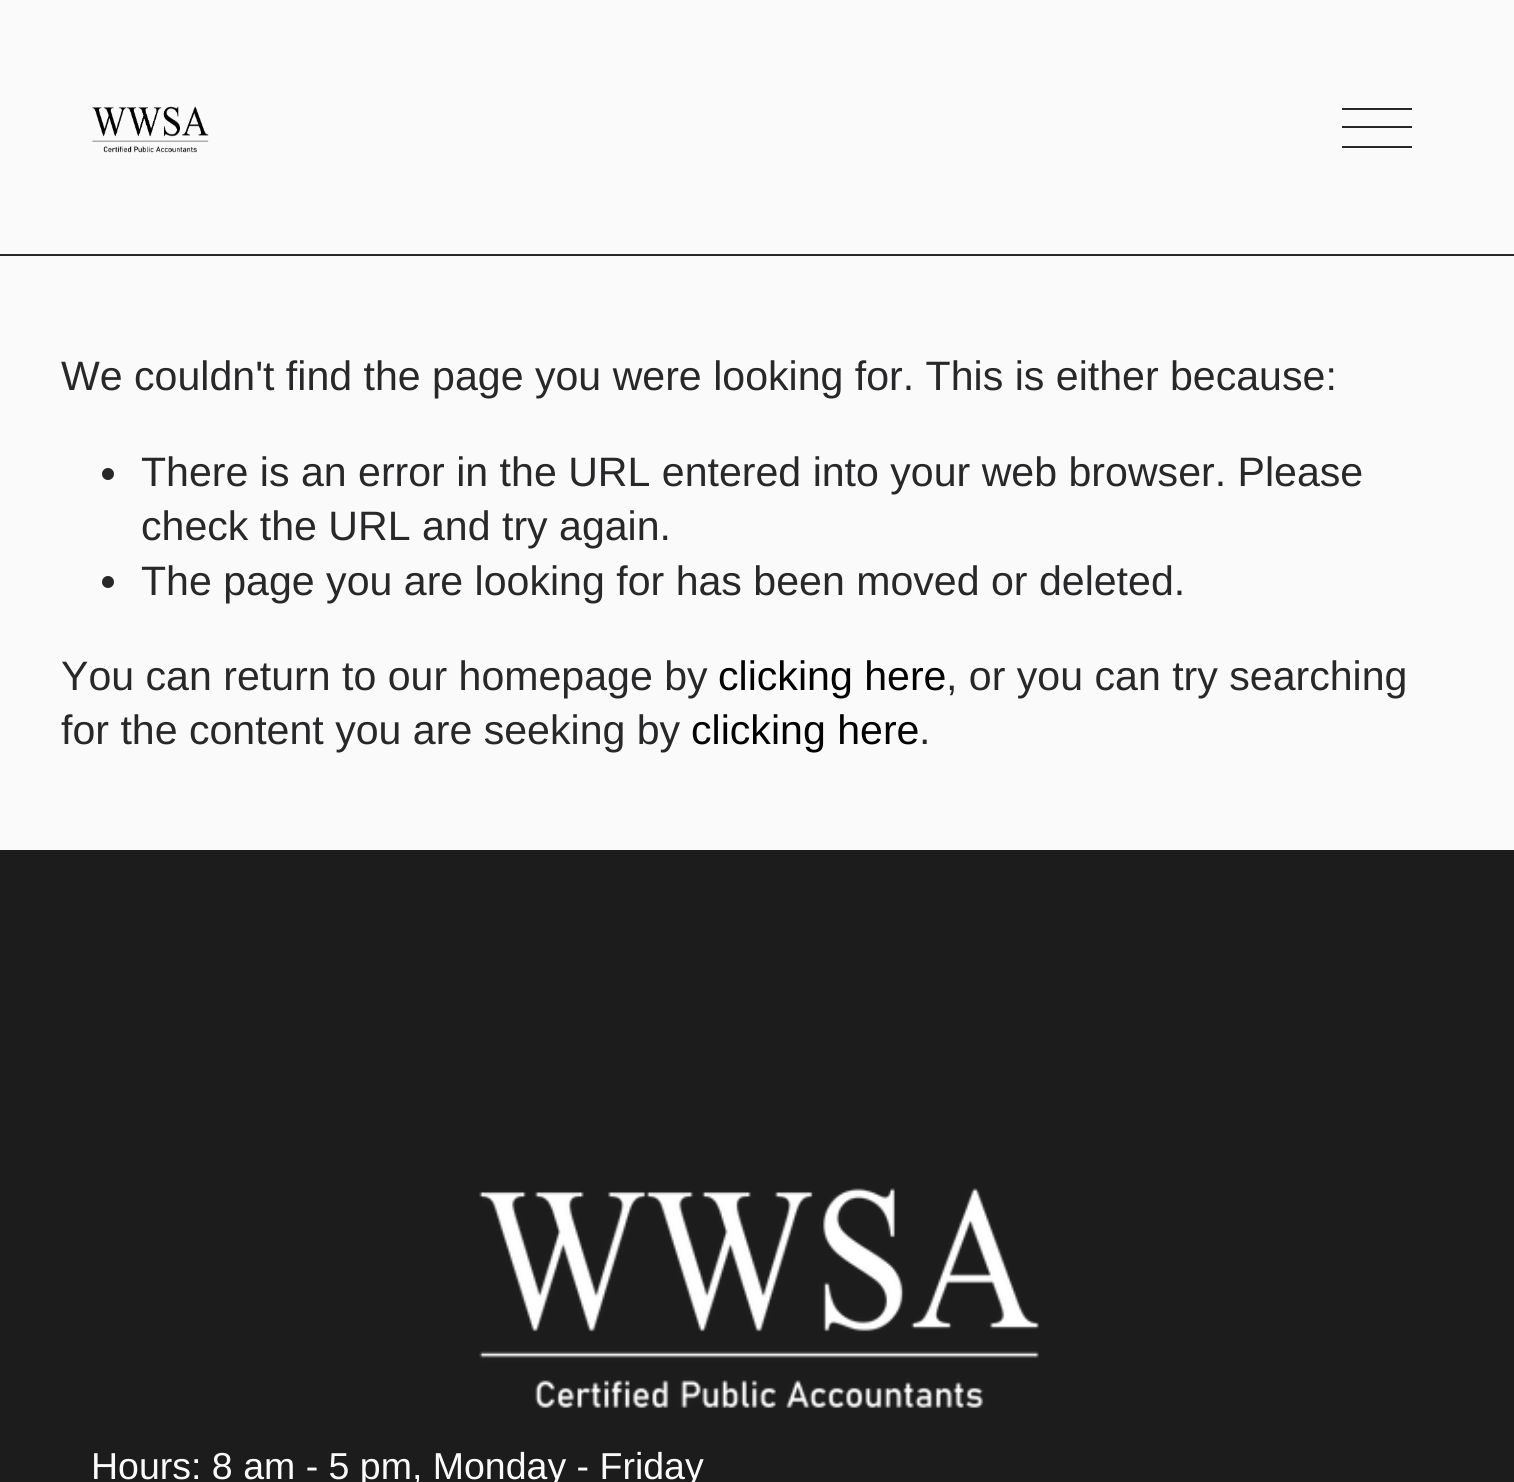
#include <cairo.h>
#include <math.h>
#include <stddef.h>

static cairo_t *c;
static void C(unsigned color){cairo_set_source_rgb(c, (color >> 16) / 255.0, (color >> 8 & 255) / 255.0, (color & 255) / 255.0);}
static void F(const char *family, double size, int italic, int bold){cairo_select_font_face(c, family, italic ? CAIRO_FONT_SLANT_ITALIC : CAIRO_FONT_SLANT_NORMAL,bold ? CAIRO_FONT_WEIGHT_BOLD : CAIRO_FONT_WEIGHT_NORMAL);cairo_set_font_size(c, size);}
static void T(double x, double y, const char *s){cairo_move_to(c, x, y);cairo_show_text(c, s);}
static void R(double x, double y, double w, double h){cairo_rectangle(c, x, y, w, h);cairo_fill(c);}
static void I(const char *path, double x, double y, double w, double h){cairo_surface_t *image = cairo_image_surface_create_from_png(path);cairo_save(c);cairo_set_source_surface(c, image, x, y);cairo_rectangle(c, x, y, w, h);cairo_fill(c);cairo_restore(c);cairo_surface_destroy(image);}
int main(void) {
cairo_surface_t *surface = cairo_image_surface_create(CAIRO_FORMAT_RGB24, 1514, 1482);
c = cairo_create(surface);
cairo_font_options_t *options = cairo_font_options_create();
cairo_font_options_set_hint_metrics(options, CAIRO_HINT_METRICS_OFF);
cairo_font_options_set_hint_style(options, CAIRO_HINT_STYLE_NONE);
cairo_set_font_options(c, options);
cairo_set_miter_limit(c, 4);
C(0xfafafa);
cairo_paint(c);
I("1.png",92,106,117,47);
C(0x28282a);
R(1342,108,70,2);
R(1342,126,70,2);
R(1342,146,70,2);
R(0,254,1514,2);
F("Liberation Sans",41.1,0,0);
T(61,390,"We couldn't find the page you were looking for. This is either because:");
cairo_new_path(c);
cairo_arc(c,108,474,6,0,2 * M_PI);
cairo_fill(c);
T(141,486,"There is an error in the URL entered into your web browser. Please");
T(141,540,"check the URL and try again.");
cairo_new_path(c);
cairo_arc(c,108,582,6,0,2 * M_PI);
cairo_fill(c);
T(141,595,"The page you are looking for has been moved or deleted.");
T(61,690,"You can return to our homepage by");
C(0x000000);
T(718,690,"clicking here");
C(0x28282a);
T(946,690,", or you can try searching");
T(61,744,"for the content you are seeking by");
C(0x000000);
T(691,744,"clicking here");
C(0x28282a);
T(919,744,".");
C(0x1c1c1d);
R(0,850,1514,632);
I("2.png",479,1188,560,220);
F("Liberation Sans",37.5,0,0);
C(0xfafafa);
T(91,1479,"Hours: 8 am - 5 pm, Monday - Friday");
cairo_surface_write_to_png(surface, "o.png");
cairo_font_options_destroy(options);
cairo_destroy(c);
cairo_surface_destroy(surface);
return 0;
}
